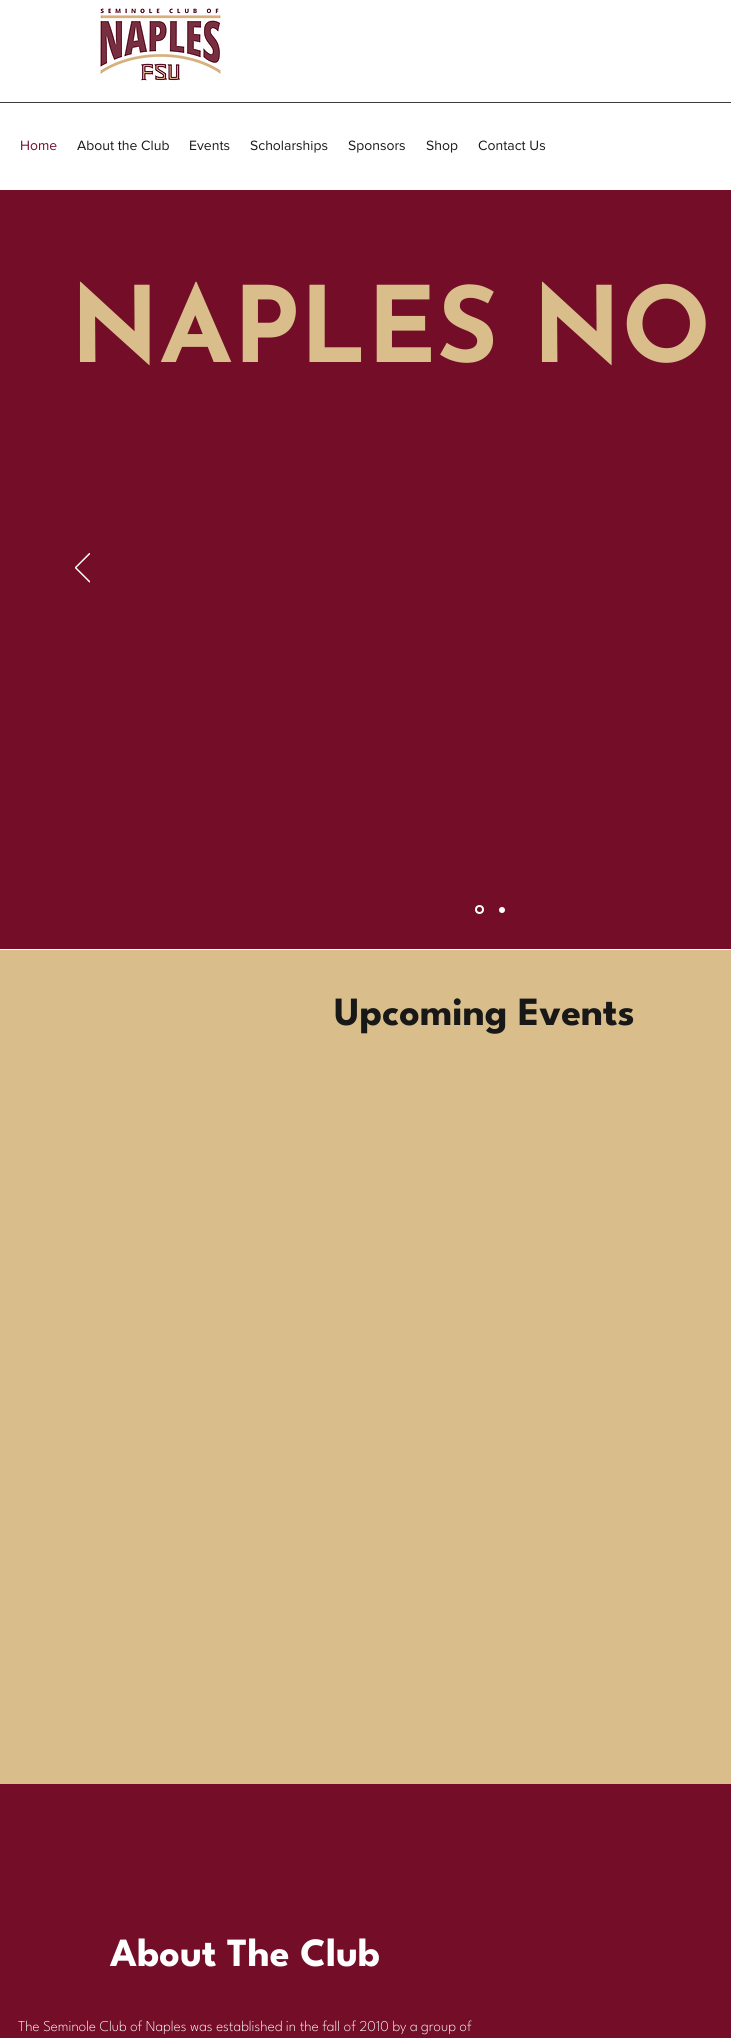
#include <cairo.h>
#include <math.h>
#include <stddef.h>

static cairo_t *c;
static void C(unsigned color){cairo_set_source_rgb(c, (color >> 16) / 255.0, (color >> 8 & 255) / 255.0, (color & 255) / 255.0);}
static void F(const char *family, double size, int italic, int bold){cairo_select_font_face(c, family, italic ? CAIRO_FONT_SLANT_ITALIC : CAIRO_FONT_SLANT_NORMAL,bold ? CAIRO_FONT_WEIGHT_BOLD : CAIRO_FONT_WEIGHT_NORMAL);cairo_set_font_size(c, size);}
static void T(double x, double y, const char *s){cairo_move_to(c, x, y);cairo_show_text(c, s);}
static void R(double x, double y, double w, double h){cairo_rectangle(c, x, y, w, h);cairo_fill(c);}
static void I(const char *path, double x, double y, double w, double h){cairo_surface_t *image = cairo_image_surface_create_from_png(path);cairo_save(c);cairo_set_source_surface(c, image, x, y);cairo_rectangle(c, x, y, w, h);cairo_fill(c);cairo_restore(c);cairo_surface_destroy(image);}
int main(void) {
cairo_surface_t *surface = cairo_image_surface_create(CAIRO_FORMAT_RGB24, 731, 2038);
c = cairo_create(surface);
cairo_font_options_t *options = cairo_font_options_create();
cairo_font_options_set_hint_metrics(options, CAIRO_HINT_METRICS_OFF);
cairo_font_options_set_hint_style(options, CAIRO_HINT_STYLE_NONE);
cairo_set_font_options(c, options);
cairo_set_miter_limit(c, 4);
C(0xffffff);
cairo_paint(c);
I("1.png",100,8,121,73);
C(0x3b3b3b);
R(0,102,731,1);
F("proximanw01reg",14,0,0);
C(0x730d28);
T(20,150,"Home");
C(0x181818);
T(77,150,"About the Club");
T(189,150,"Events");
T(250,150,"Scholarships");
T(348,150,"Sponsors");
T(426,150,"Shop");
T(478,150,"Contact Us");
C(0x730d28);
R(0,190,731,759);
F("Josefin Sans",105,0,1);
C(0xd9bd8b);
T(70,362,"NAPLES NO");
I("2.png",75,553,15,30);
cairo_arc(c,479.5,909.5,3.5,0,2 * M_PI);
C(0xffffff);
cairo_stroke(c);
cairo_arc(c,502,910,3,0,2 * M_PI);
cairo_fill(c);
C(0xd9bd8b);
R(0,950,731,834);
F("League Spartan",40,0,1);
C(0x181818);
T(334,1025,"Upcoming Events");
C(0x730d28);
R(0,1784,731,254);
C(0xffffff);
T(110,1966,"About The Club");
F("League Spartan ExtraLight",15,0,0);
T(18,2031,"The Seminole Club of Naples was established in the fall of 2010 by a group of");
cairo_surface_write_to_png(surface, "o.png");
cairo_font_options_destroy(options);
cairo_destroy(c);
cairo_surface_destroy(surface);
return 0;
}
